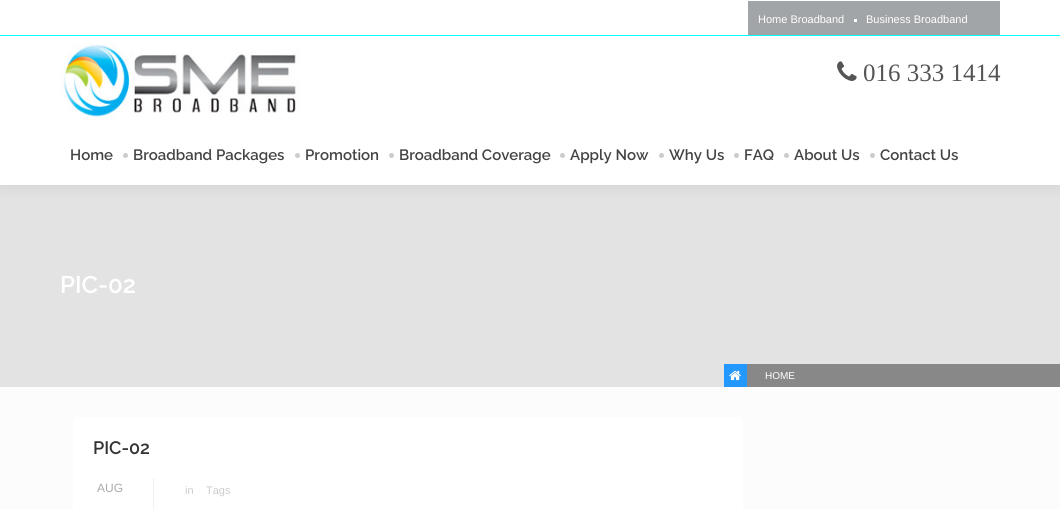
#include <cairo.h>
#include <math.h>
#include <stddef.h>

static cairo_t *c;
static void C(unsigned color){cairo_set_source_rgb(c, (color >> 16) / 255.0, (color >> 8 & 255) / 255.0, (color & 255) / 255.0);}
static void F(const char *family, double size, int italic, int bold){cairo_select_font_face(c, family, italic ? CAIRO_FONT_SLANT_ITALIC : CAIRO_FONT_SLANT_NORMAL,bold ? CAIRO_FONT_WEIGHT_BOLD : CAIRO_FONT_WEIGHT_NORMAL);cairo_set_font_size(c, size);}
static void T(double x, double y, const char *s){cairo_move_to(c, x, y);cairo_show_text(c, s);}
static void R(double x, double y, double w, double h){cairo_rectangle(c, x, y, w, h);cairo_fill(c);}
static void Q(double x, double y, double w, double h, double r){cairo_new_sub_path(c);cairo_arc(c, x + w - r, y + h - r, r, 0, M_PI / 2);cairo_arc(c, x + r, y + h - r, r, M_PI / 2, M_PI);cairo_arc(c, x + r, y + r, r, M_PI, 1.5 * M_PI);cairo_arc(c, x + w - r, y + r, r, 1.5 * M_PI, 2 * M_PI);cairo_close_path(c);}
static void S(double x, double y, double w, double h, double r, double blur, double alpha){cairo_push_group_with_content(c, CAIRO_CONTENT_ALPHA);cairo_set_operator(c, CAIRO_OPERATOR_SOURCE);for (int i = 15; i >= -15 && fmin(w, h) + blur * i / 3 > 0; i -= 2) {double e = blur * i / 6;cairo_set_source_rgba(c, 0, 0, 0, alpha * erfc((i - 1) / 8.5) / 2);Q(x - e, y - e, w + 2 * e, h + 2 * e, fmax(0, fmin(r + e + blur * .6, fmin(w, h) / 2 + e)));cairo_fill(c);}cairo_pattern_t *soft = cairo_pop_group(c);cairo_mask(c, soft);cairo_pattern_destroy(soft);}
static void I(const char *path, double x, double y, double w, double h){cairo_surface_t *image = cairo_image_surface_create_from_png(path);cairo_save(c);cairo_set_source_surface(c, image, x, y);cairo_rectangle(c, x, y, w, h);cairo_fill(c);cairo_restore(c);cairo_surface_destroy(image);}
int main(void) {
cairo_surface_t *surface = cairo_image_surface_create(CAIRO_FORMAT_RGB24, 1060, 509);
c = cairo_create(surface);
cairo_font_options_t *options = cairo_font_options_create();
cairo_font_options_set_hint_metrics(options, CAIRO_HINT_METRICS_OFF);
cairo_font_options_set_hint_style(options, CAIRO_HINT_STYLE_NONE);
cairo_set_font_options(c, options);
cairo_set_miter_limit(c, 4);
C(0xfcfcfc);
cairo_paint(c);
C(0xffffff);
R(0,0,1060,1);
C(0xe3e3e3);
R(0,185,1060,202);
C(0x000000);
S(0,36,1060,149,0,7.5,.1);
C(0xffffff);
R(0,1,1060,34);
C(0x00ffff);
R(0,35,1060,1);
C(0xa2a5a8);
R(748,1,252,34);
F("Liberation Sans",11,0,0);
C(0xffffff);
T(758,23,"Home Broadband");
R(854,19,3,3);
T(866,23,"Business Broadband");
R(0,36,1060,149);
I("1.png",60,44,240,76);
I("2.png",837,61,20,20);
F("Liberation Serif",25,0,0);
C(0x555555);
T(863,81,"016 333 1414");
F("Raleway Thin",15,0,0);
C(0x444444);
T(70,160,"Home");
C(0xcccccc);
cairo_new_path(c);
cairo_arc(c,125.5,155.5,2.5,0,2 * M_PI);
cairo_fill(c);
C(0x444444);
T(133,160,"Broadband Packages");
C(0xcccccc);
cairo_new_path(c);
cairo_arc(c,297.5,155.5,2.5,0,2 * M_PI);
cairo_fill(c);
C(0x444444);
T(305,160,"Promotion");
C(0xcccccc);
cairo_new_path(c);
cairo_arc(c,391.5,155.5,2.5,0,2 * M_PI);
cairo_fill(c);
C(0x444444);
T(399,160,"Broadband Coverage");
C(0xcccccc);
cairo_new_path(c);
cairo_arc(c,562.5,155.5,2.5,0,2 * M_PI);
cairo_fill(c);
C(0x444444);
T(570,160,"Apply Now");
C(0xcccccc);
cairo_new_path(c);
cairo_arc(c,661.5,155.5,2.5,0,2 * M_PI);
cairo_fill(c);
C(0x444444);
T(669,160,"Why Us");
C(0xcccccc);
cairo_new_path(c);
cairo_arc(c,736.5,155.5,2.5,0,2 * M_PI);
cairo_fill(c);
C(0x444444);
T(744,160,"FAQ");
C(0xcccccc);
cairo_new_path(c);
cairo_arc(c,786.5,155.5,2.5,0,2 * M_PI);
cairo_fill(c);
C(0x444444);
T(794,160,"About Us");
C(0xcccccc);
cairo_new_path(c);
cairo_arc(c,872.5,155.5,2.5,0,2 * M_PI);
cairo_fill(c);
C(0x444444);
T(880,160,"Contact Us");
F("Raleway Thin",24,0,0);
C(0xffffff);
T(60,293,"PIC-02");
C(0x888888);
R(747,364,313,23);
C(0x2398ff);
R(724,364,23,23);
I("3.png",729,370,12,11);
F("Liberation Sans",10,0,0);
C(0xffffff);
T(765,379,"HOME");
R(73,417,670,92);
F("Raleway Thin",18,0,0);
C(0x333333);
T(93,454,"PIC-02");
F("Liberation Sans",12,0,0);
C(0xaaaaaa);
T(97,492,"AUG");
C(0xf0f0f0);
R(153,478,1,31);
F("Liberation Sans",11,0,0);
C(0xcccccc);
T(185,494,"in");
T(206,494,"Tags");
cairo_surface_write_to_png(surface, "o.png");
cairo_font_options_destroy(options);
cairo_destroy(c);
cairo_surface_destroy(surface);
return 0;
}
